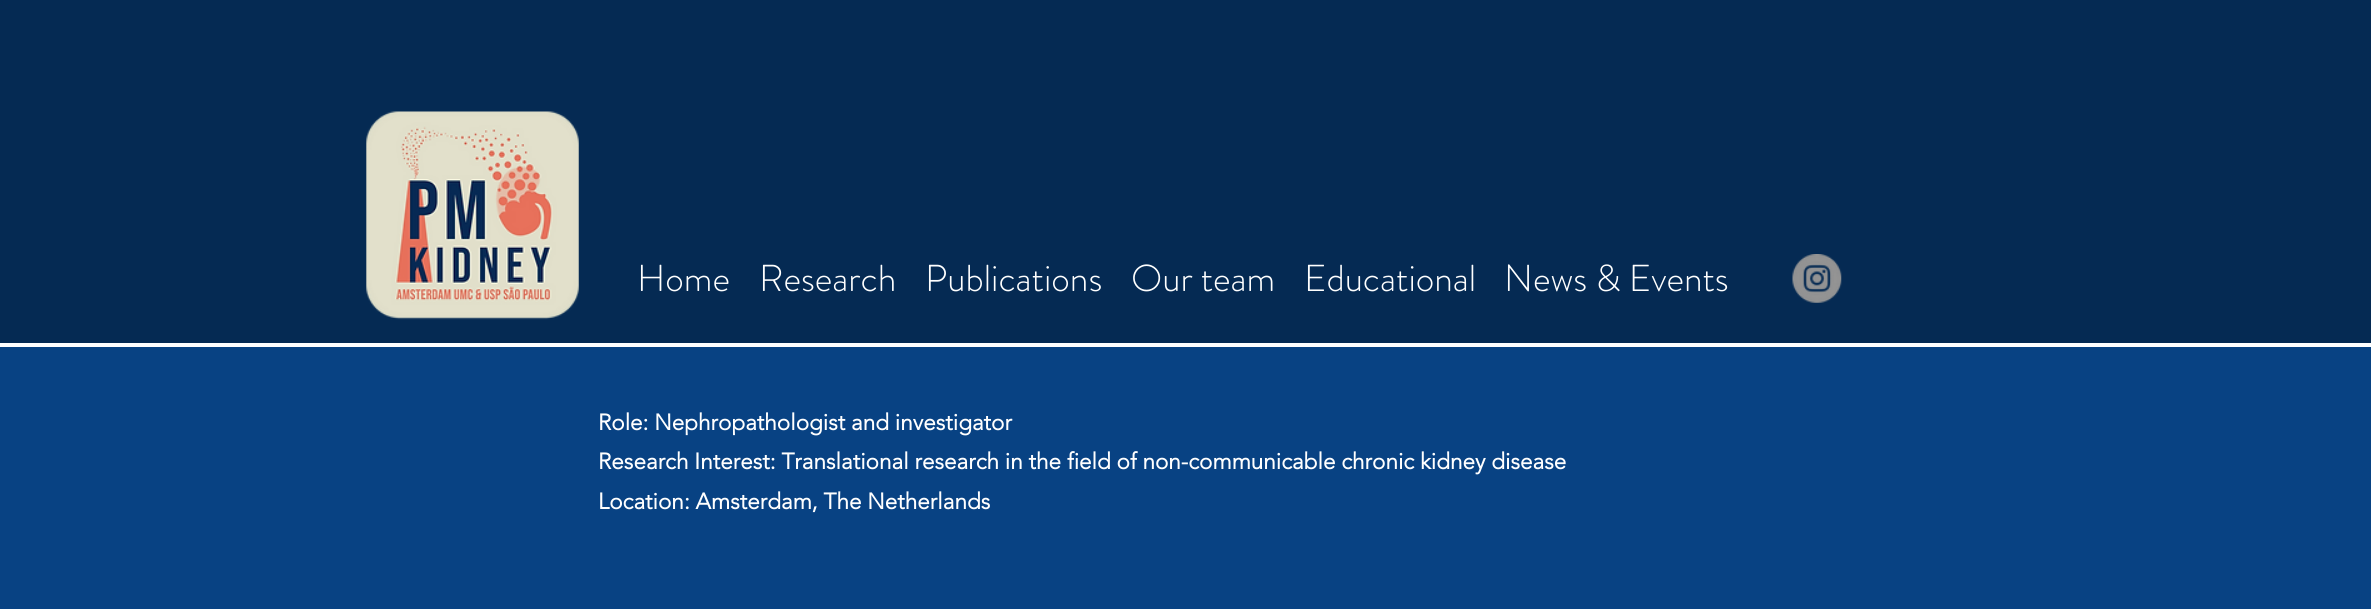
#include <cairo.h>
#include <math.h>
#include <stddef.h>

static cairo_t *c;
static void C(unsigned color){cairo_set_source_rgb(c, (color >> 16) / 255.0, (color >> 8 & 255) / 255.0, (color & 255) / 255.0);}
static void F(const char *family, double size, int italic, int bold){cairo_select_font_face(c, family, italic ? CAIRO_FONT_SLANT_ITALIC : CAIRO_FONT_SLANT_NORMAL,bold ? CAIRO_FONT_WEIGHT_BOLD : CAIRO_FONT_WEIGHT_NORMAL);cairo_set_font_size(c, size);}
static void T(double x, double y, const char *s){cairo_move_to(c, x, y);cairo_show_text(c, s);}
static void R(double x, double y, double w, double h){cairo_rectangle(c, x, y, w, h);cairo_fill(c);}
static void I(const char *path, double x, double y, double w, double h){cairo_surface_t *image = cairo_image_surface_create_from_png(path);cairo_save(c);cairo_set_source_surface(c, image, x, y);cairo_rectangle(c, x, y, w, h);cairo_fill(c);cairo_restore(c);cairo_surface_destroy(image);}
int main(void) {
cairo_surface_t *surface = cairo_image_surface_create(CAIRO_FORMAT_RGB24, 2371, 609);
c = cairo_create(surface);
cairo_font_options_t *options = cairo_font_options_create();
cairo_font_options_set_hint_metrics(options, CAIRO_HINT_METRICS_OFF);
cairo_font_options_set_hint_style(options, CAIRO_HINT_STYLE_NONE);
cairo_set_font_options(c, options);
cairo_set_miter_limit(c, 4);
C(0x084283);
cairo_paint(c);
C(0x052a53);
R(0,0,2371,343);
C(0xffffff);
R(0,343,2371,4);
I("1.png",366,111,213,209);
F("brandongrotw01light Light",37.5,0,0);
T(637,291,"Home");
T(759,291,"Research");
T(925,291,"Publications");
T(1131,291,"Our team");
T(1304,291,"Educational");
T(1504,291,"News & Events");
I("2.png",1792,254,50,49);
F("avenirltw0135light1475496",22.5,0,1);
T(598,430,"Role: Nephropathologist and investigator");
T(598,469,"Research Interest: Translational research in the field of non-communicable chronic kidney disease");
T(598,509,"Location: Amsterdam, The Netherlands");
cairo_surface_write_to_png(surface, "o.png");
cairo_font_options_destroy(options);
cairo_destroy(c);
cairo_surface_destroy(surface);
return 0;
}
